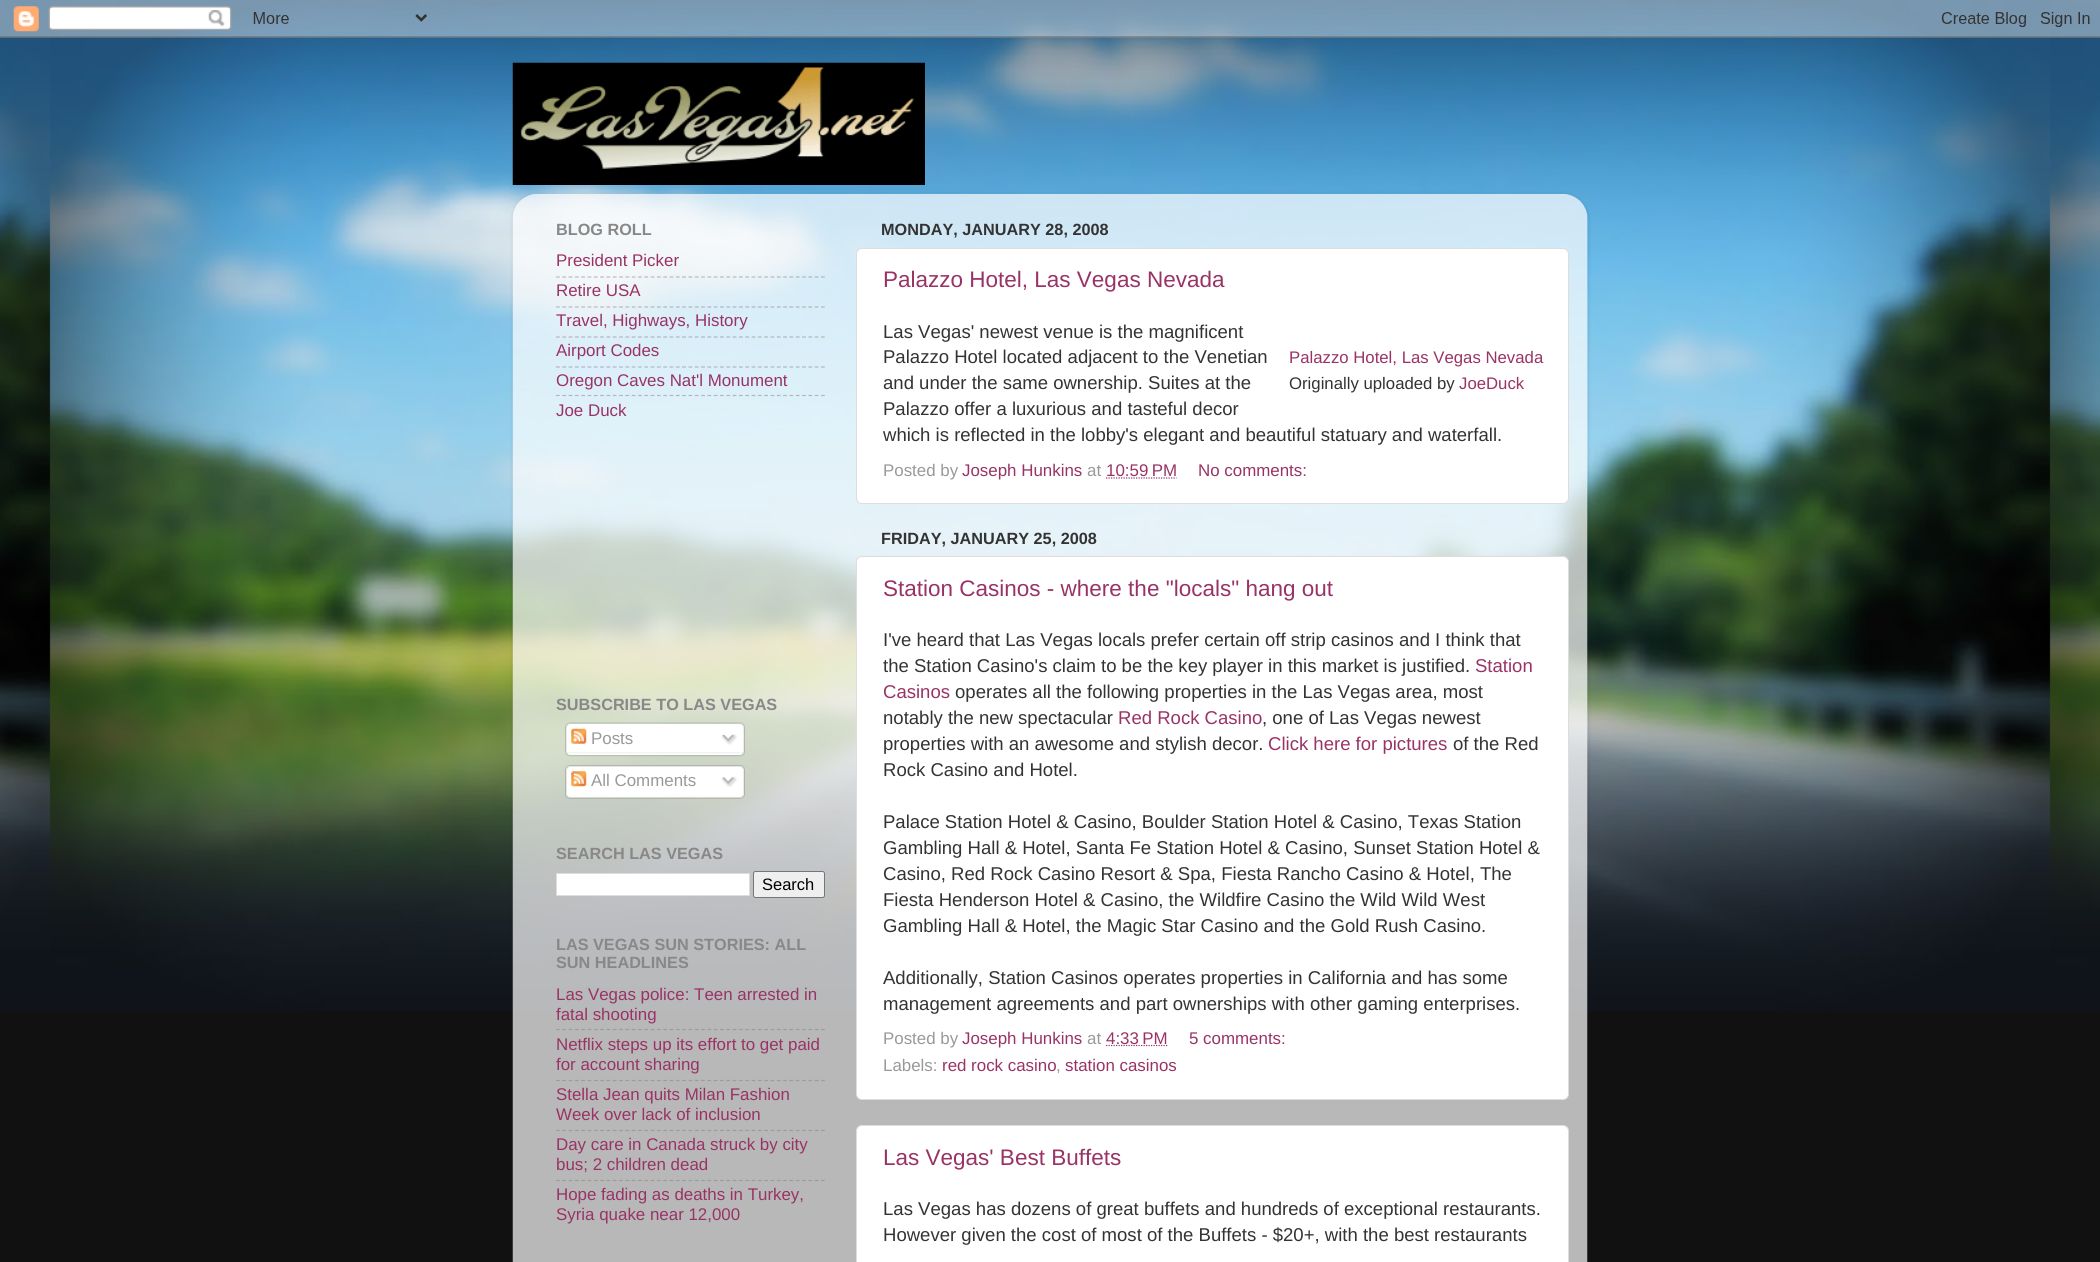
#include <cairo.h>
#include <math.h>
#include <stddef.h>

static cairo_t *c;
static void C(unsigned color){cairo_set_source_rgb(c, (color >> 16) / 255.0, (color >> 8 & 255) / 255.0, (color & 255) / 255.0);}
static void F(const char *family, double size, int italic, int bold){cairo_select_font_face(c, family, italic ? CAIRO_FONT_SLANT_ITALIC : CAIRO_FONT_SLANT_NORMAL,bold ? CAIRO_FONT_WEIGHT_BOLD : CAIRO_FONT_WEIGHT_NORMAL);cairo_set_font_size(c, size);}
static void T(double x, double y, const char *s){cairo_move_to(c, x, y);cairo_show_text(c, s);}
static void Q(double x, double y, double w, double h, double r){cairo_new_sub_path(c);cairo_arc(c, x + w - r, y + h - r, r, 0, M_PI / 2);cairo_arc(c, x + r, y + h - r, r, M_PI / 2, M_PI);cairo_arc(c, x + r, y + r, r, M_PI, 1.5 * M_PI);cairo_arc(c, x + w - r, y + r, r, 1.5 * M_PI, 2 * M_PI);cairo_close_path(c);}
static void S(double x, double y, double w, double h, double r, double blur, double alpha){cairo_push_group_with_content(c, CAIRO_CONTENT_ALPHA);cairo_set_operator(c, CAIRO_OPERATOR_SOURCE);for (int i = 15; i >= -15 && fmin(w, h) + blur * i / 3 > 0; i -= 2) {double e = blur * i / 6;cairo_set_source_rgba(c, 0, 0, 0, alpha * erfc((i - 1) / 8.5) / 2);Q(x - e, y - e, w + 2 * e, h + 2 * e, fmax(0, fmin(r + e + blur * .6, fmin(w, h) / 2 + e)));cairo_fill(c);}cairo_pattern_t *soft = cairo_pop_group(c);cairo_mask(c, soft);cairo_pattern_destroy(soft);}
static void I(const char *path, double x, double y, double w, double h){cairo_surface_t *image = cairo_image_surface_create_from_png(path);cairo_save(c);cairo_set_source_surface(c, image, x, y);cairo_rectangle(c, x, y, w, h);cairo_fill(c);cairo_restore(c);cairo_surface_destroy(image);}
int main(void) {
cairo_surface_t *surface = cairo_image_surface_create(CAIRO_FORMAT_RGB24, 2100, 1262);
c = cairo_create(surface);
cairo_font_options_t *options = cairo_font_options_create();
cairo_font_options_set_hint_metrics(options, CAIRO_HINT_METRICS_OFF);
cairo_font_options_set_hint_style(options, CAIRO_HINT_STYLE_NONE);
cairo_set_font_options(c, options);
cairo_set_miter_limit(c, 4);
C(0x111111);
cairo_paint(c);
I("1.png",0,0,2100,1011);
I("2.png",0,0,2100,38);
I("3.png",512,62,413,123);
cairo_save(c);
cairo_set_fill_rule(c,CAIRO_FILL_RULE_EVEN_ODD);
cairo_new_path(c);
cairo_move_to(c,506,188);
cairo_line_to(c,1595,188);
cairo_line_to(c,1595,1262);
cairo_line_to(c,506,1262);
cairo_close_path(c);
cairo_move_to(c,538,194);
cairo_line_to(c,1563,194);
cairo_curve_to(c,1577,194,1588,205,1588,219);
cairo_line_to(c,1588,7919);
cairo_line_to(c,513,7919);
cairo_line_to(c,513,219);
cairo_curve_to(c,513,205,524,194,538,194);
cairo_close_path(c);
cairo_clip(c);
C(0x000000);
S(513,195,1075,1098,25,2,.15);
cairo_restore(c);
I("4.png",512,193,1076,1069);
F("Liberation Sans",16.25,0,1);
C(0x888888);
T(556,235,"BLOG ROLL");
F("Liberation Sans",16.9,0,0);
C(0x993366);
T(556,266,"President Picker");
cairo_new_path(c);
cairo_move_to(c,556,277);
cairo_line_to(c,825,277);
cairo_set_source_rgba(c,0.502,0.502,0.502,0.5);
cairo_set_line_width(c,1.2);
cairo_set_dash(c,(double[]){3.75,2.56},2,0);
cairo_stroke(c);
C(0x993366);
T(556,296,"Retire USA");
cairo_new_path(c);
cairo_move_to(c,556,307);
cairo_line_to(c,825,307);
cairo_set_source_rgba(c,0.502,0.502,0.502,0.5);
cairo_stroke(c);
C(0x993366);
T(556,326,"Travel, Highways, History");
cairo_new_path(c);
cairo_move_to(c,556,337);
cairo_line_to(c,825,337);
cairo_set_source_rgba(c,0.502,0.502,0.502,0.5);
cairo_stroke(c);
C(0x993366);
T(556,356,"Airport Codes");
cairo_new_path(c);
cairo_move_to(c,556,367);
cairo_line_to(c,825,367);
C(0xaeb8bd);
cairo_stroke(c);
C(0x993366);
T(556,386,"Oregon Caves Nat'l Monument");
cairo_new_path(c);
cairo_move_to(c,556,395.5);
cairo_line_to(c,825,395.5);
C(0xafb8bd);
cairo_stroke(c);
C(0x993366);
T(556,416,"Joe Duck");
F("Liberation Sans",16.25,0,1);
C(0x888888);
T(556,710,"SUBSCRIBE TO LAS VEGAS");
I("5.png",565,722,180,31);
I("6.png",571,728,16,16);
F("Liberation Sans",16.9,0,0);
C(0x999999);
T(591,744,"Posts");
I("7.png",721,734,17,11);
I("8.png",565,752,180,5);
I("9.png",565,765,180,30);
I("10.png",571,771,16,16);
T(591,786,"All Comments");
I("11.png",721,776,17,12);
I("12.png",565,795,180,4);
F("Liberation Sans",16.25,0,1);
C(0x888888);
T(556,859,"SEARCH LAS VEGAS");
C(0xffffff);
cairo_rectangle(c,556.5,873.5,193,22);
cairo_fill_preserve(c);
C(0xdddddd);
cairo_set_line_width(c,1);
cairo_set_dash(c,NULL,0,0);
cairo_stroke(c);
C(0xefefef);
Q(753.5,871.5,71,26,2);
cairo_fill_preserve(c);
C(0x767676);
cairo_stroke(c);
F("Liberation Sans",16.5,0,0);
C(0x000000);
T(762,890,"Search");
F("Liberation Sans",16.25,0,1);
C(0x888888);
T(556,950,"LAS VEGAS SUN STORIES: ALL");
T(556,968,"SUN HEADLINES");
F("Liberation Sans",16.9,0,0);
C(0x993366);
T(556,1000,"Las Vegas police: Teen arrested in");
T(556,1020,"fatal shooting");
cairo_new_path(c);
cairo_move_to(c,556,1029.5);
cairo_line_to(c,825,1029.5);
C(0x9c9c9c);
cairo_set_line_width(c,1.2);
cairo_set_dash(c,(double[]){3.75,2.56},2,0);
cairo_stroke(c);
C(0x993366);
T(556,1050,"Netflix steps up its effort to get paid");
T(556,1070,"for account sharing");
cairo_new_path(c);
cairo_move_to(c,556,1080.5);
cairo_line_to(c,825,1080.5);
C(0x9c9c9c);
cairo_stroke(c);
C(0x993366);
T(556,1100,"Stella Jean quits Milan Fashion");
T(556,1120,"Week over lack of inclusion");
cairo_new_path(c);
cairo_move_to(c,556,1130.5);
cairo_line_to(c,825,1130.5);
C(0x9c9c9c);
cairo_stroke(c);
C(0x993366);
T(556,1150,"Day care in Canada struck by city");
T(556,1170,"bus; 2 children dead");
cairo_new_path(c);
cairo_move_to(c,556,1180.5);
cairo_line_to(c,825,1180.5);
C(0x9c9c9c);
cairo_stroke(c);
C(0x993366);
T(556,1200,"Hope fading as deaths in Turkey,");
T(556,1220,"Syria quake near 12,000");
F("Liberation Sans",16.25,0,1);
C(0x333333);
T(881,235,"MONDAY, JANUARY 28, 2008");
C(0xffffff);
Q(856.5,248.5,712,255,5.5);
cairo_fill_preserve(c);
C(0xdddddd);
cairo_set_line_width(c,1);
cairo_set_dash(c,NULL,0,0);
cairo_stroke(c);
F("Liberation Sans",22.5,0,0);
C(0x993366);
T(883,287,"Palazzo Hotel, Las Vegas Nevada");
F("Liberation Sans",18.55,0,0);
C(0x333333);
T(883,338,"Las Vegas' newest venue is the magnificent");
T(883,363,"Palazzo Hotel located adjacent to the Venetian");
F("Liberation Sans",16.75,0,0);
C(0x993366);
T(1289,363,"Palazzo Hotel, Las Vegas Nevada");
C(0x333333);
T(1289,389,"Originally uploaded by");
C(0x993366);
T(1459,389,"JoeDuck");
F("Liberation Sans",18.55,0,0);
C(0x333333);
T(883,389,"and under the same ownership. Suites at the");
T(883,415,"Palazzo offer a luxurious and tasteful decor");
T(883,441,"which is reflected in the lobby's elegant and beautiful statuary and waterfall.");
F("Liberation Sans",16.9,0,0);
C(0x999999);
T(883,476,"Posted by");
C(0x993366);
T(962,476,"Joseph Hunkins");
C(0x999999);
T(1087,476,"at");
C(0x993366);
T(1106,476,"10:59 PM");
cairo_new_path(c);
cairo_move_to(c,1106,478);
cairo_line_to(c,1176.5,478);
cairo_set_line_width(c,1.2);
cairo_set_dash(c,(double[]){1.25,1.25},2,0);
cairo_stroke(c);
T(1198,476,"No comments:");
F("Liberation Sans",16.25,0,1);
C(0x333333);
T(881,544,"FRIDAY, JANUARY 25, 2008");
C(0xffffff);
Q(856.5,556.5,712,543,5.5);
cairo_fill_preserve(c);
C(0xdddddd);
cairo_set_line_width(c,1);
cairo_set_dash(c,NULL,0,0);
cairo_stroke(c);
F("Liberation Sans",22.5,0,0);
C(0x993366);
T(883,596,"Station Casinos - where the \"locals\" hang out");
F("Liberation Sans",18.55,0,0);
C(0x333333);
T(883,646,"I've heard that Las Vegas locals prefer certain off strip casinos and I think that");
T(883,672,"the Station Casino's claim to be the key player in this market is justified.");
C(0x993366);
T(1475,672,"Station");
T(883,698,"Casinos");
C(0x333333);
T(955,698,"operates all the following properties in the Las Vegas area, most");
T(883,724,"notably the new spectacular");
C(0x993366);
T(1118,724,"Red Rock Casino");
C(0x333333);
T(1262,724,", one of Las Vegas newest");
T(883,750,"properties with an awesome and stylish decor.");
C(0x993366);
T(1268,750,"Click here for pictures");
C(0x333333);
T(1453,750,"of the Red");
T(883,776,"Rock Casino and Hotel.");
T(883,828,"Palace Station Hotel & Casino, Boulder Station Hotel & Casino, Texas Station");
T(883,854,"Gambling Hall & Hotel, Santa Fe Station Hotel & Casino, Sunset Station Hotel &");
T(883,880,"Casino, Red Rock Casino Resort & Spa, Fiesta Rancho Casino & Hotel, The");
T(883,906,"Fiesta Henderson Hotel & Casino, the Wildfire Casino the Wild Wild West");
T(883,932,"Gambling Hall & Hotel, the Magic Star Casino and the Gold Rush Casino.");
T(883,984,"Additionally, Station Casinos operates properties in California and has some");
T(883,1010,"management agreements and part ownerships with other gaming enterprises.");
F("Liberation Sans",16.9,0,0);
C(0x999999);
T(883,1044,"Posted by");
C(0x993366);
T(962,1044,"Joseph Hunkins");
C(0x999999);
T(1087,1044,"at");
cairo_new_path(c);
cairo_move_to(c,1106,1045.5);
cairo_line_to(c,1167.5,1045.5);
C(0x993366);
cairo_set_line_width(c,1.2);
cairo_set_dash(c,(double[]){1.25,1.25},2,0);
cairo_stroke(c);
T(1106,1044,"4:33 PM");
T(1189,1044,"5 comments:");
C(0x999999);
T(883,1071,"Labels:");
C(0x993366);
T(942,1071,"red rock casino");
C(0x999999);
T(1056,1071,",");
C(0x993366);
T(1065,1071,"station casinos");
C(0xffffff);
Q(856.5,1125.5,712,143,5.5);
cairo_fill_preserve(c);
C(0xdddddd);
cairo_set_line_width(c,1);
cairo_set_dash(c,NULL,0,0);
cairo_stroke(c);
F("Liberation Sans",22.5,0,0);
C(0x993366);
T(883,1165,"Las Vegas' Best Buffets");
F("Liberation Sans",18.55,0,0);
C(0x333333);
T(883,1215,"Las Vegas has dozens of great buffets and hundreds of exceptional restaurants.");
T(883,1241,"However given the cost of most of the Buffets - $20+, with the best restaurants");
cairo_surface_write_to_png(surface, "o.png");
cairo_font_options_destroy(options);
cairo_destroy(c);
cairo_surface_destroy(surface);
return 0;
}
